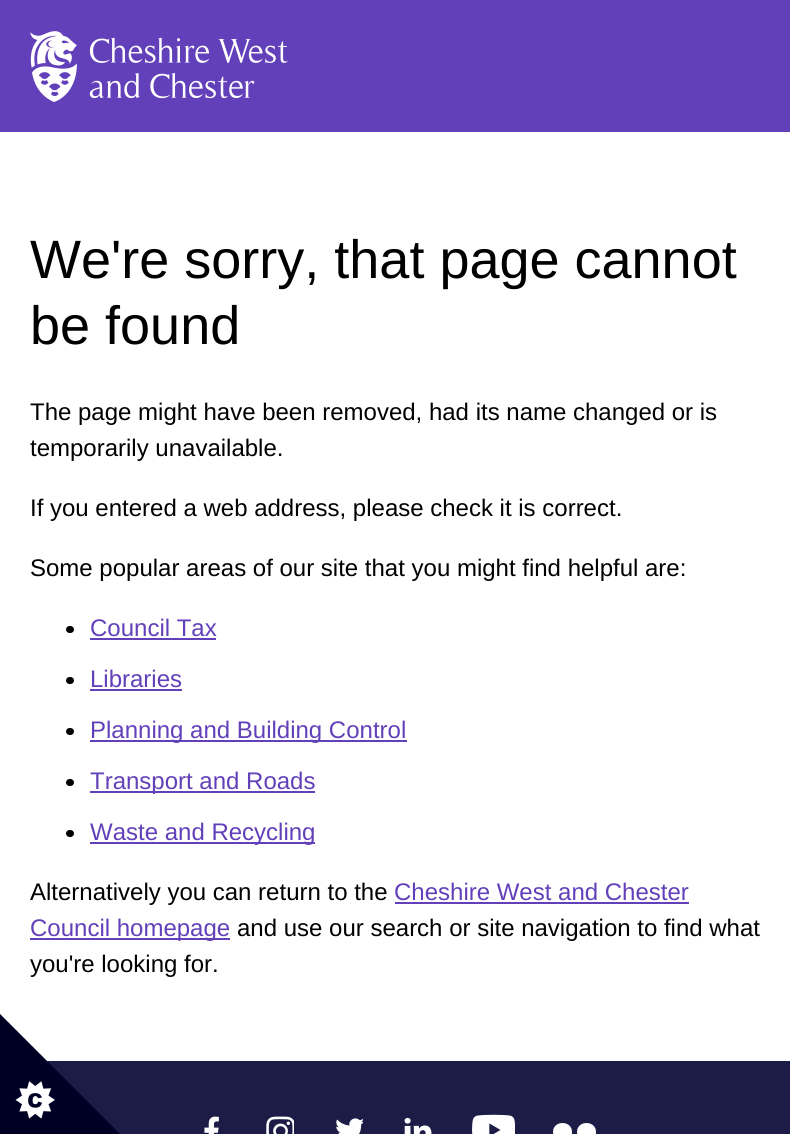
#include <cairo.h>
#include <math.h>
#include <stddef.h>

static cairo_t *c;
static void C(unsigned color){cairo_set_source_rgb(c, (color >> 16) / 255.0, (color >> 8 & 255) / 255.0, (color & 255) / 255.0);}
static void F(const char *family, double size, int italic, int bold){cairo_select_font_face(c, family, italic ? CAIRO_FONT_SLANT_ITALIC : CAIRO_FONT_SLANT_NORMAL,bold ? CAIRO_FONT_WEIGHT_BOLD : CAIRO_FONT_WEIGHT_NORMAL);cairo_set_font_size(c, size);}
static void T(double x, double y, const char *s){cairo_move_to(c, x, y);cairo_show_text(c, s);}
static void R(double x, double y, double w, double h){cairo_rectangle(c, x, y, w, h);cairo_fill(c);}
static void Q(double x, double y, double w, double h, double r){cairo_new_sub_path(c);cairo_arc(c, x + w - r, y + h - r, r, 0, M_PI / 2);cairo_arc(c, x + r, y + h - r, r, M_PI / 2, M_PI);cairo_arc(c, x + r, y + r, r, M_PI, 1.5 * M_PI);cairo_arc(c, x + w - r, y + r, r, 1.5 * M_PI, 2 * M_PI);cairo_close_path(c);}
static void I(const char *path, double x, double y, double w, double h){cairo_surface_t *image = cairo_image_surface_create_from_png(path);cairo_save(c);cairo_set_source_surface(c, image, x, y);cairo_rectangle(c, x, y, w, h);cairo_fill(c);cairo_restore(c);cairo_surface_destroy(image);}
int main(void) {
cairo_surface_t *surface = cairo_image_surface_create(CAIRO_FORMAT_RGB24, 790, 1134);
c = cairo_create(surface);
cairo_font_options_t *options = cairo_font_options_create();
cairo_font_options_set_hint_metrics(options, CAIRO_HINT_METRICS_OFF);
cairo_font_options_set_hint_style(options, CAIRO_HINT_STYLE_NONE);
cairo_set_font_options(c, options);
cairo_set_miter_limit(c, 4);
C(0xffffff);
cairo_paint(c);
C(0x6240ba);
R(0,0,790,132);
I("1.png",30,31,258,71);
F("Liberation Sans",54,0,0);
C(0x000000);
T(30,278,"We're sorry, that page cannot");
T(30,344,"be found");
F("Liberation Sans",24,0,0);
T(30,420,"The page might have been removed, had its name changed or is");
T(30,456,"temporarily unavailable.");
T(30,516,"If you entered a web address, please check it is correct.");
T(30,576,"Some popular areas of our site that you might find helpful are:");
Q(66,626,8,7,3.5);
cairo_fill(c);
C(0x6240ba);
T(90,636,"Council Tax");
R(90,638,126,2);
C(0x000000);
Q(66,677,8,7,3.5);
cairo_fill(c);
C(0x6240ba);
T(90,687,"Libraries");
R(90,689,92,2);
C(0x000000);
Q(66,728,8,7,3.5);
cairo_fill(c);
C(0x6240ba);
R(90,740,317,2);
T(90,738,"Planning and Building Control");
C(0x000000);
Q(66,779,8,7,3.5);
cairo_fill(c);
C(0x6240ba);
R(90,791,225,2);
T(90,789,"Transport and Roads");
C(0x000000);
Q(66,830,8,7,3.5);
cairo_fill(c);
C(0x6240ba);
R(90,842,225,2);
T(90,840,"Waste and Recycling");
C(0x000000);
T(30,900,"Alternatively you can return to the");
C(0x6240ba);
T(394,900,"Cheshire West and Chester");
R(395,902,294,2);
R(30,938,200,2);
T(30,936,"Council homepage");
C(0x000000);
T(237,936,"and use our search or site navigation to find what");
T(30,972,"you're looking for.");
C(0x1c1c47);
R(47,1061,743,73);
I("2.png",204,1116,15,18);
I("3.png",266,1116,28,18);
I("4.png",336,1118,27,16);
I("5.png",404,1117,28,17);
I("6.png",472,1114,43,20);
C(0xffffff);
cairo_new_path(c);
cairo_move_to(c,553,1132);
cairo_curve_to(c,553,1120,572,1120,572,1132);
cairo_curve_to(c,572,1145,553,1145,553,1132);
cairo_close_path(c);
cairo_move_to(c,577,1132);
cairo_curve_to(c,577,1120,596,1120,596,1132);
cairo_curve_to(c,596,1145,577,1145,577,1132);
cairo_close_path(c);
cairo_fill(c);
I("7.png",0,1014,120,120);
cairo_surface_write_to_png(surface, "o.png");
cairo_font_options_destroy(options);
cairo_destroy(c);
cairo_surface_destroy(surface);
return 0;
}
